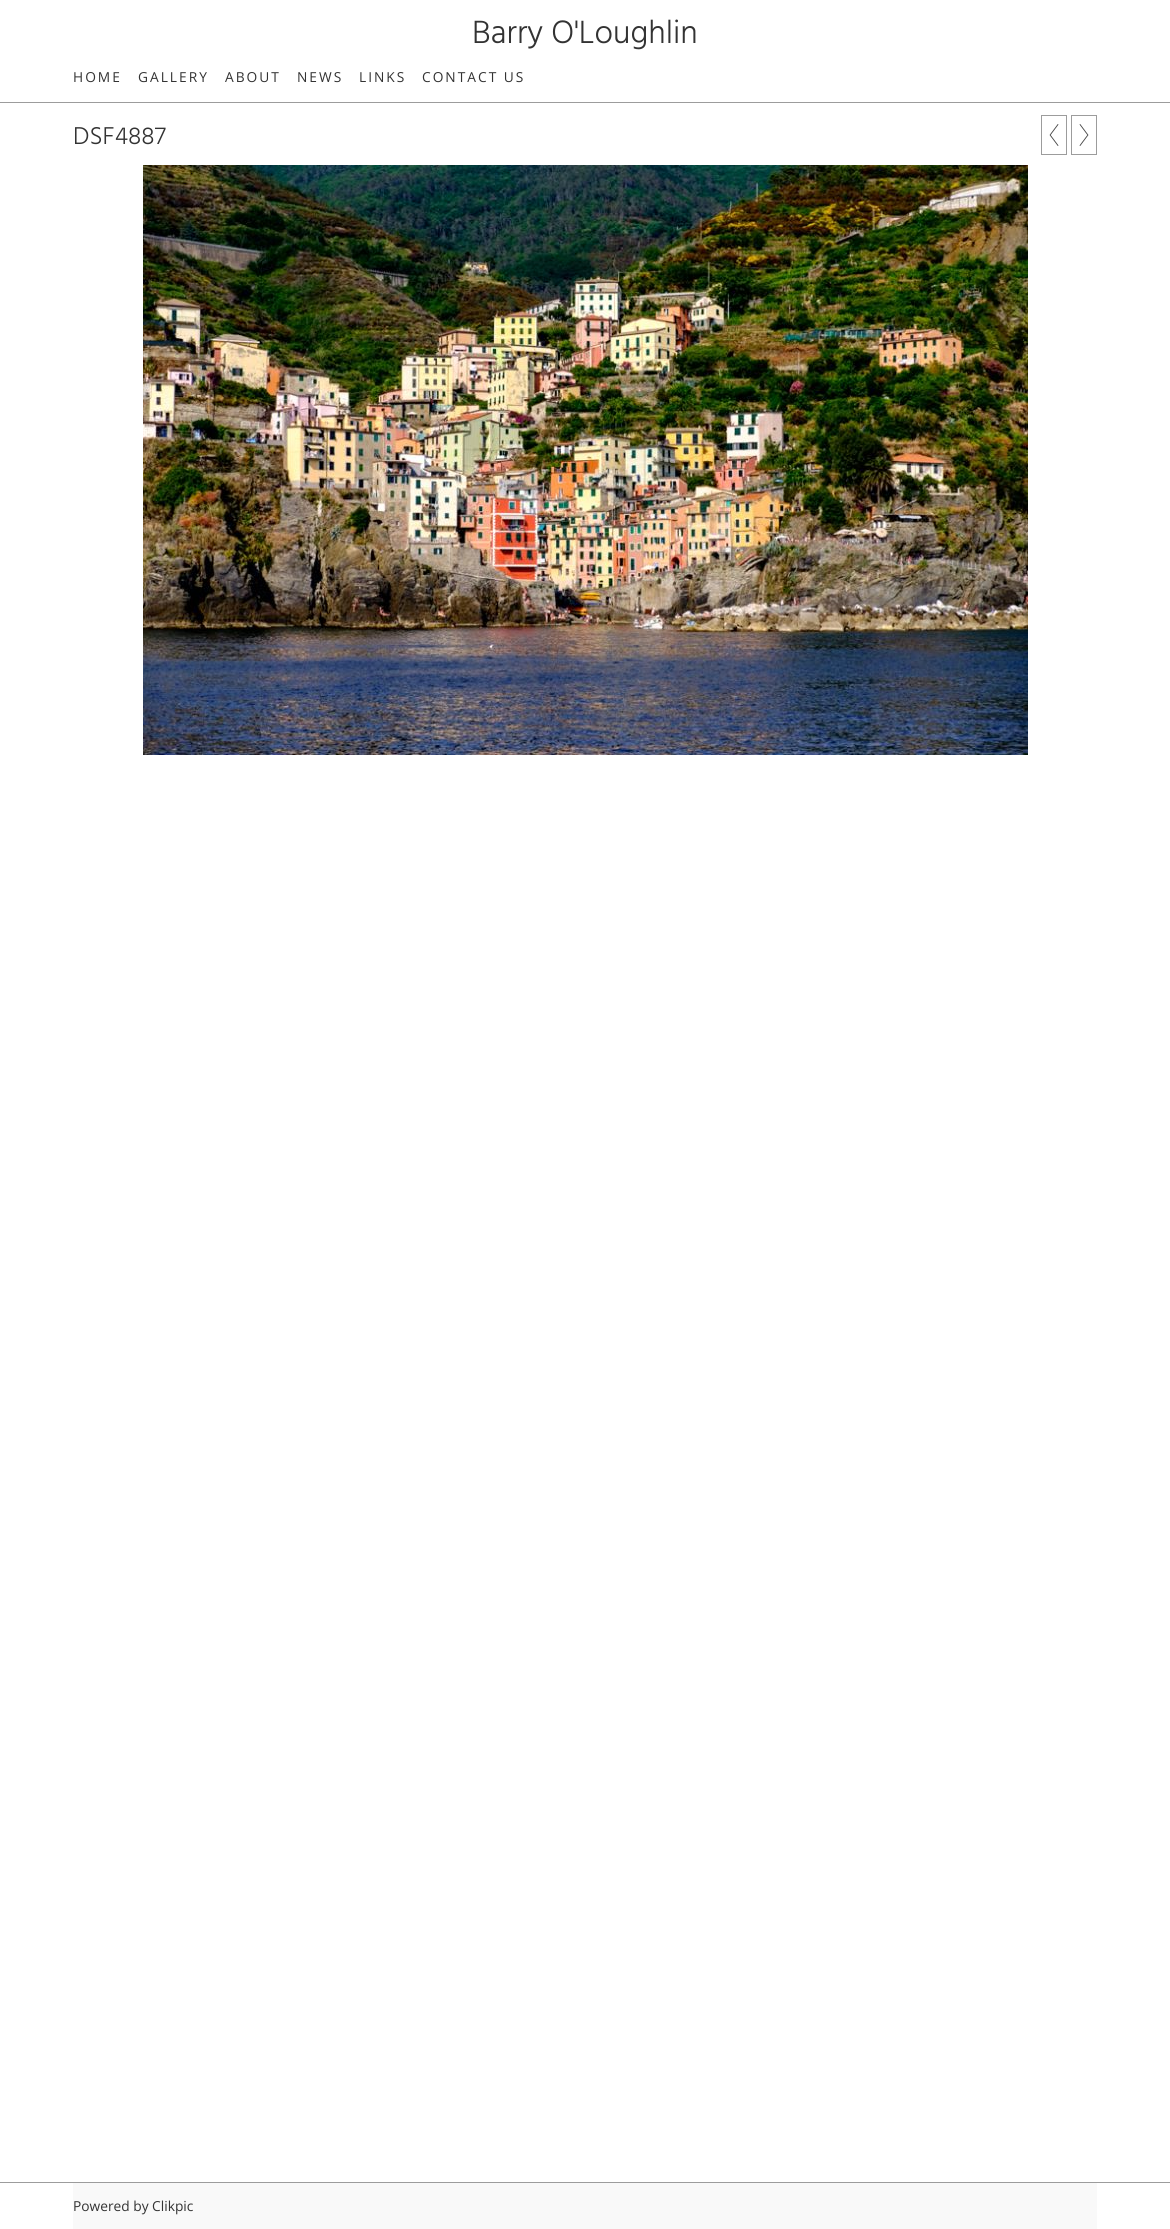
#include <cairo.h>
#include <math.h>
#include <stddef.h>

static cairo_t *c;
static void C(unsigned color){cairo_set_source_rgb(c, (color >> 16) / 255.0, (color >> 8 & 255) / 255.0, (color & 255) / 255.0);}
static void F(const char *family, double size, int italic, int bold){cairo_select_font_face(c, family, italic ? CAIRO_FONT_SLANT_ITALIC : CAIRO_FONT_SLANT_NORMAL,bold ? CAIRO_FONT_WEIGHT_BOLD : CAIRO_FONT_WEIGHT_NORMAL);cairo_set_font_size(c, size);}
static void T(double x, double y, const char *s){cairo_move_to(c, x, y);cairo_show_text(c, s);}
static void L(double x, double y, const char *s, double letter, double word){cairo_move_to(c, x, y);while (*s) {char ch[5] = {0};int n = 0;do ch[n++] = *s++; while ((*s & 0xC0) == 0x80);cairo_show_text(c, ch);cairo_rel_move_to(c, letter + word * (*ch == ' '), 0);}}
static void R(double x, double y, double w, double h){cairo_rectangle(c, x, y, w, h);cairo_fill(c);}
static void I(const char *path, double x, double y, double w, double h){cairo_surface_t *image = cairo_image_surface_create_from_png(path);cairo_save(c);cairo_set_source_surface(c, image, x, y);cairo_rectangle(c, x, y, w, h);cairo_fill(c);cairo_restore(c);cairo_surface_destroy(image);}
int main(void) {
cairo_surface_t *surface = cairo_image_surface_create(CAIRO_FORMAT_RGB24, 1170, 2229);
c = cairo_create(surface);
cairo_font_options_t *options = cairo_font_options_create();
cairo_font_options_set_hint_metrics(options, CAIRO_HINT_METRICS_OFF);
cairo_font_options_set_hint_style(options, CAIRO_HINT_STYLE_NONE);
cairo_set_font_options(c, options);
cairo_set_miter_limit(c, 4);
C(0xffffff);
cairo_paint(c);
C(0x9c9c9c);
R(0,102,1170,1);
F("Hind Light",33,0,0);
C(0x333333);
T(472,43,"Barry O'Loughlin");
F("Open Sans",13.75,0,0);
L(73,82,"HOME",2,0);
L(138,82,"GALLERY",2,0);
L(225,82,"ABOUT",2,0);
L(297,82,"NEWS",2,0);
L(359,82,"LINKS",2,0);
L(422,82,"CONTACT US",2,0);
F("Hind Light",25,0,0);
T(73,144,"DSF4887");
cairo_rectangle(c,1041.5,115.5,25,39);
C(0x9c9c9c);
cairo_set_line_width(c,1);
cairo_stroke(c);
I("1.png",1049,124,10,22);
cairo_rectangle(c,1071.5,115.5,25,39);
cairo_stroke(c);
I("2.png",1079,124,10,22);
I("3.png",143,165,885,590);
R(0,2182,1170,1);
C(0xf9f9f9);
R(73,2183,1024,46);
F("Open Sans",13.75,0,0);
C(0x333333);
T(73,2211,"Powered by Clikpic");
cairo_surface_write_to_png(surface, "o.png");
cairo_font_options_destroy(options);
cairo_destroy(c);
cairo_surface_destroy(surface);
return 0;
}
